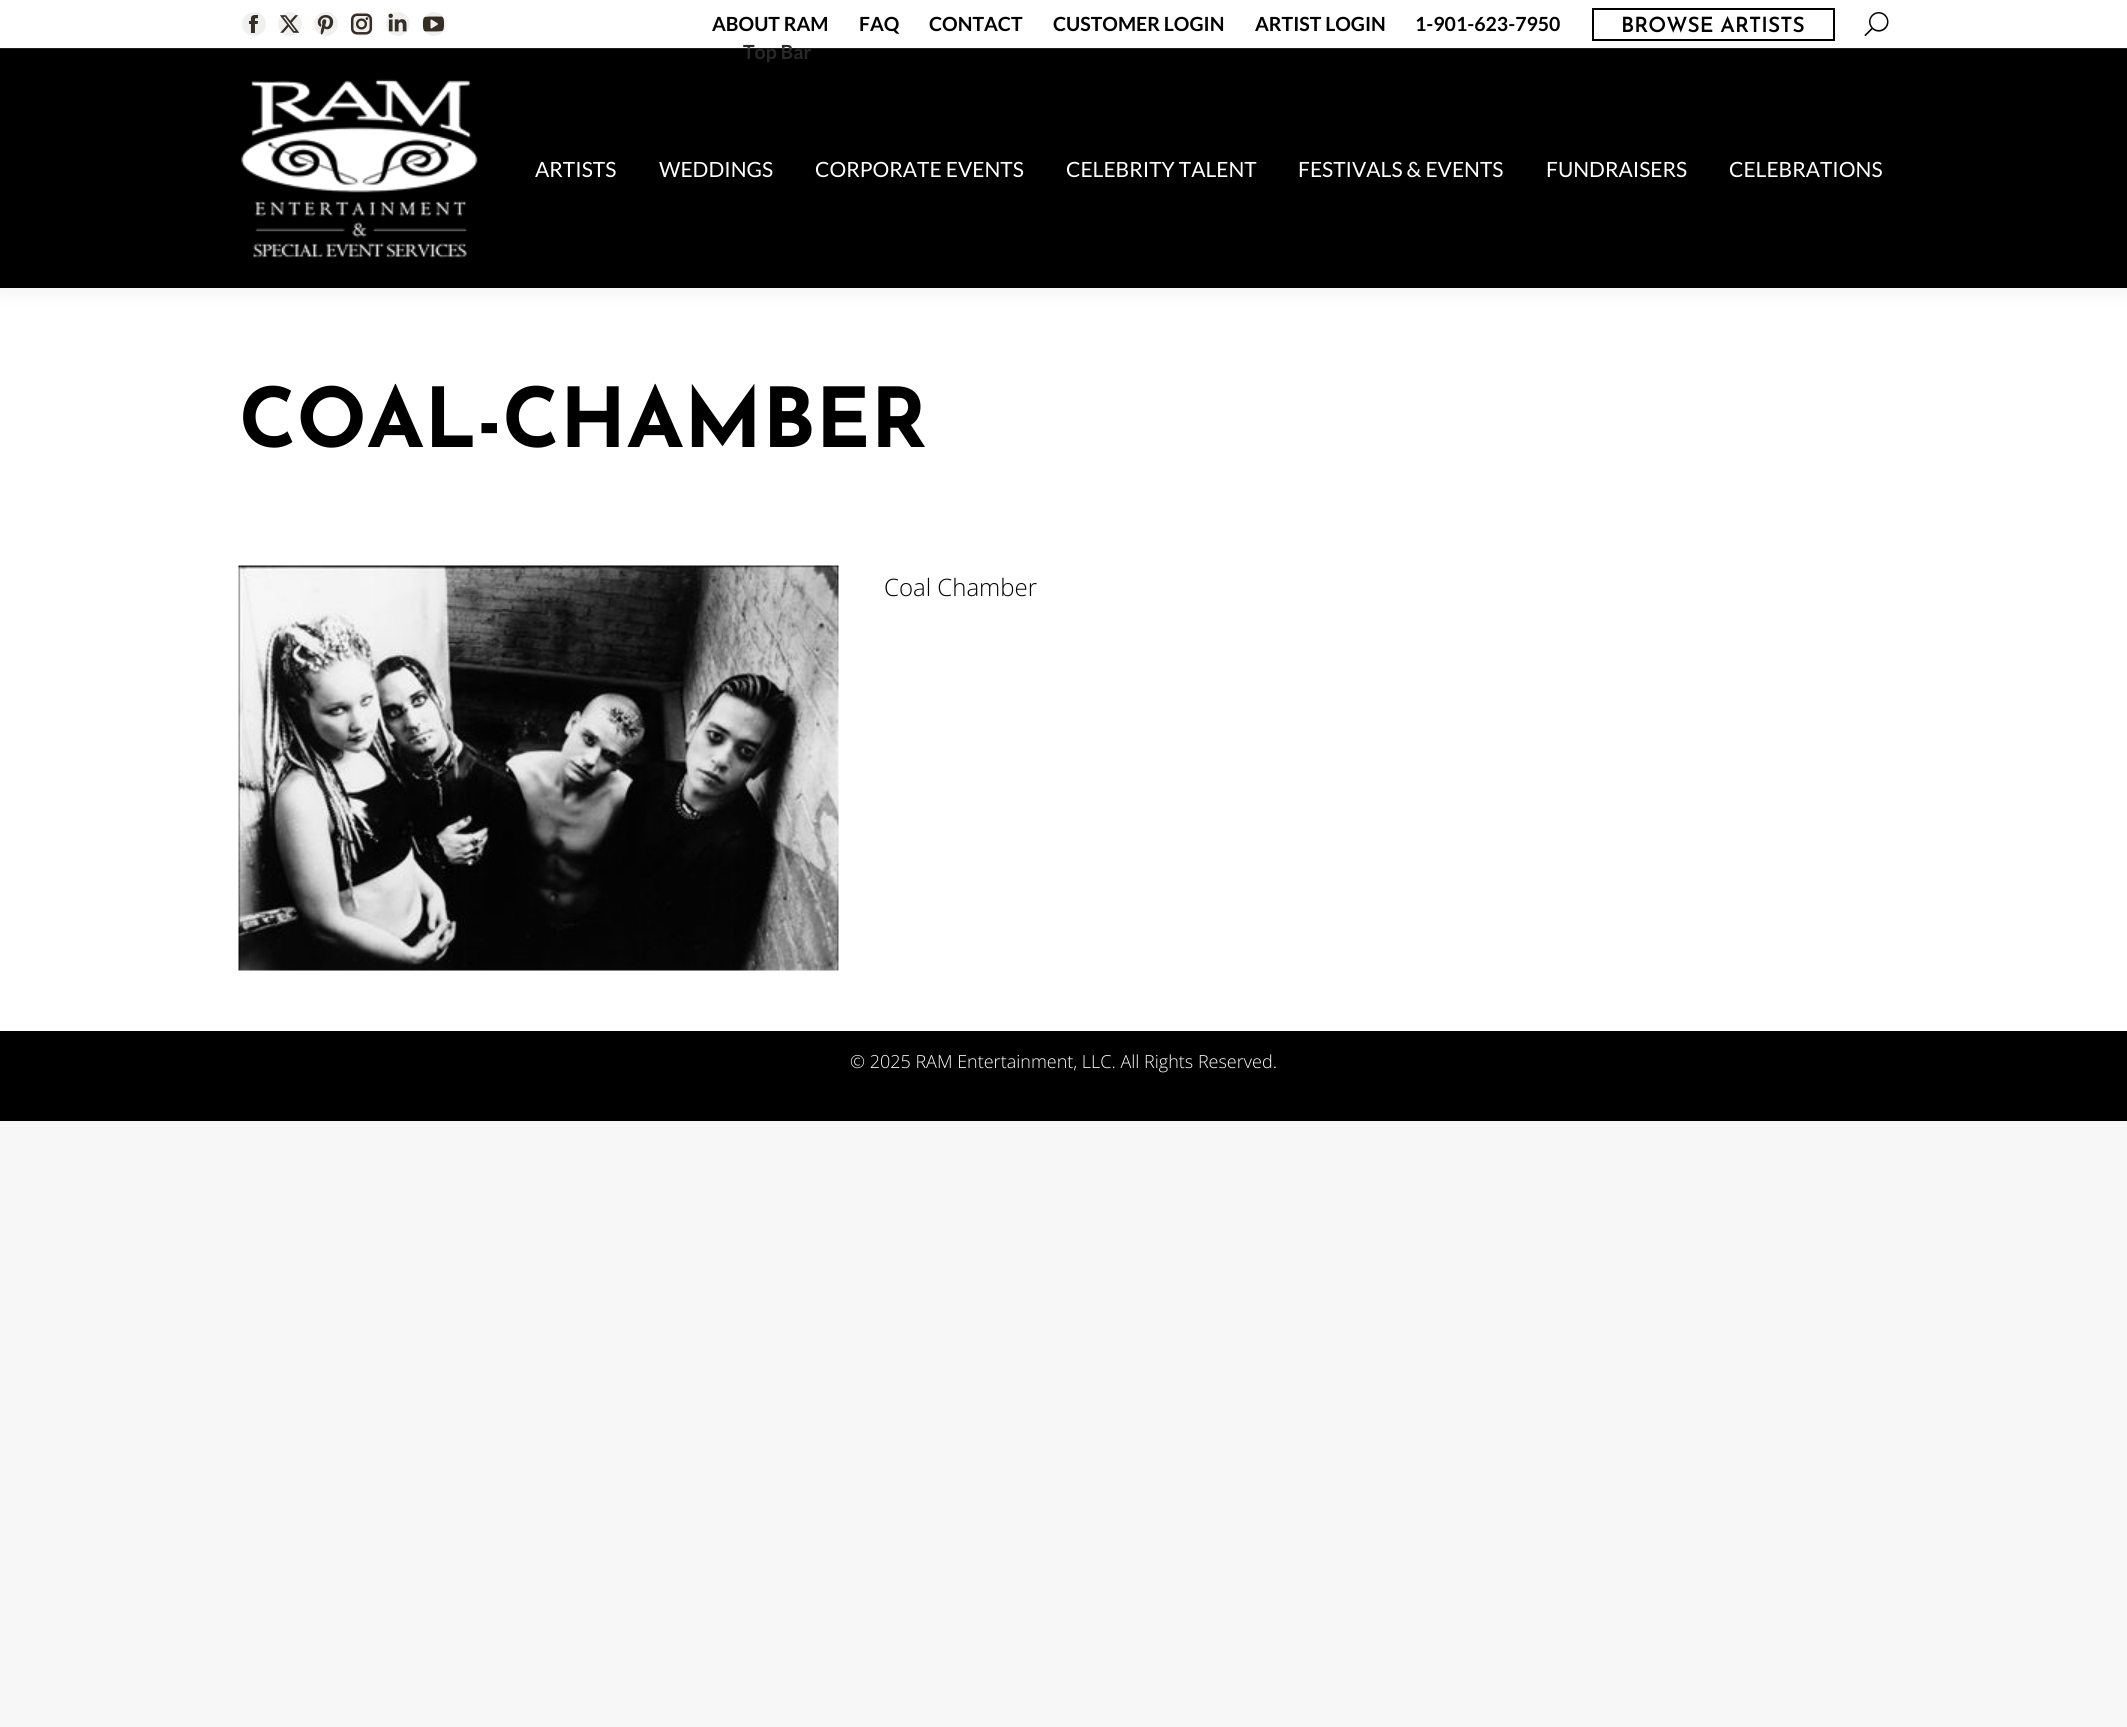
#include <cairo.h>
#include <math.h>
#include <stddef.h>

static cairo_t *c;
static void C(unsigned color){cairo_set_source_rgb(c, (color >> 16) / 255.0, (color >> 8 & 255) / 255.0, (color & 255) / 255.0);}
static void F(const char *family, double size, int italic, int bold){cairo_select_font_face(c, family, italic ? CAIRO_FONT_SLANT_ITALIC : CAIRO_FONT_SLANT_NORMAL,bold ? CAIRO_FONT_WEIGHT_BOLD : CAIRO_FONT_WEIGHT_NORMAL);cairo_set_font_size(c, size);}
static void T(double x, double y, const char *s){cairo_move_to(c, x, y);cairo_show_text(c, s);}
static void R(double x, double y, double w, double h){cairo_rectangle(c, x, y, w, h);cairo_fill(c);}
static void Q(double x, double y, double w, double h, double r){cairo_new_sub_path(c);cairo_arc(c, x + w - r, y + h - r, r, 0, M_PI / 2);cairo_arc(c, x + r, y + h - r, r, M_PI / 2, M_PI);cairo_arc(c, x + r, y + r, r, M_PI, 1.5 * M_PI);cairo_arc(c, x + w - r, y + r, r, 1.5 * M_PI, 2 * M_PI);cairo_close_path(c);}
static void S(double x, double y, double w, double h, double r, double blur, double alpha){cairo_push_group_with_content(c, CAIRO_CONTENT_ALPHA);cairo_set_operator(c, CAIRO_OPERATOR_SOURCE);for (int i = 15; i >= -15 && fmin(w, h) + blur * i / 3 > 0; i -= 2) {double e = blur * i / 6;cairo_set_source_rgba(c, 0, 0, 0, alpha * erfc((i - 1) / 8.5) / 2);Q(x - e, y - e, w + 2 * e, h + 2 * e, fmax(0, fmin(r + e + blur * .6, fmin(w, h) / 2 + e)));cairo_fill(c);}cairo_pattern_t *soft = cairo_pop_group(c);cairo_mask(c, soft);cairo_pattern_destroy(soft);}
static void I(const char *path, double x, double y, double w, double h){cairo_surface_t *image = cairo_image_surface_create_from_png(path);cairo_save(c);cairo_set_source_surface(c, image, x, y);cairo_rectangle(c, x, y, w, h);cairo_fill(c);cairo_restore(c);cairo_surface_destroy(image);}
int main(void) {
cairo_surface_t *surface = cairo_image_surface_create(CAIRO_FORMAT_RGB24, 2127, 1727);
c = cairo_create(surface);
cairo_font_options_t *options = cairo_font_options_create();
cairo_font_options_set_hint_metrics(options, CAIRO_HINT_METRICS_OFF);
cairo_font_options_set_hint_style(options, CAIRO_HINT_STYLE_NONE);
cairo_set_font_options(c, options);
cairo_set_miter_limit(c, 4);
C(0xf7f7f7);
cairo_paint(c);
C(0xffffff);
R(0,288,2127,743);
C(0x000000);
S(-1,-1,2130,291,0,11,.07);
C(0x000000);
R(0,48,2127,240);
C(0xffffff);
R(0,0,2127,48);
C(0xf0f0f0);
cairo_arc(c,254,24,13.5,0,2 * M_PI);
cairo_fill_preserve(c);
C(0xffffff);
cairo_set_line_width(c,3);
cairo_stroke(c);
I("1.png",248,15,11,18);
C(0xf0f0f0);
cairo_arc(c,290,24,13.5,0,2 * M_PI);
cairo_fill_preserve(c);
C(0xffffff);
cairo_stroke(c);
I("2.png",279,15,21,18);
C(0xf0f0f0);
cairo_arc(c,326,24,13.5,0,2 * M_PI);
cairo_fill_preserve(c);
C(0xffffff);
cairo_stroke(c);
I("3.png",317,15,17,20);
C(0xf0f0f0);
cairo_arc(c,362,24,13.5,0,2 * M_PI);
cairo_fill_preserve(c);
C(0xffffff);
cairo_stroke(c);
I("4.png",351,13,21,22);
C(0xf0f0f0);
cairo_arc(c,398,24,13.5,0,2 * M_PI);
cairo_fill_preserve(c);
C(0xffffff);
cairo_stroke(c);
I("5.png",388,13,19,19);
C(0xf0f0f0);
cairo_arc(c,434,24,13.5,0,2 * M_PI);
cairo_fill_preserve(c);
C(0xffffff);
cairo_stroke(c);
I("6.png",423,16,21,16);
F("Lato",19.5,0,1);
C(0x000000);
T(712,31,"ABOUT RAM");
T(859,31,"FAQ");
T(929,31,"CONTACT");
T(1053,31,"CUSTOMER LOGIN");
T(1255,31,"ARTIST LOGIN");
C(0x282828);
T(743,59,"Top Bar");
C(0x000000);
T(1415,31,"1-901-623-7950");
cairo_rectangle(c,1593,9,241,31);
cairo_set_line_width(c,2);
cairo_stroke(c);
F("Josefin Sans SemiBold",21,0,0);
T(1621,32,"BROWSE ARTISTS");
I("7.png",1864,12,25,24);
cairo_set_source_rgba(c,1,1,1,0.12);
R(0,47,2127,2);
I("8.png",241,79,237,179);
F("Lato",21,0,0);
C(0xffffff);
T(535,177,"ARTISTS");
T(659,177,"WEDDINGS");
T(815,177,"CORPORATE EVENTS");
T(1066,177,"CELEBRITY TALENT");
T(1298,177,"FESTIVALS & EVENTS");
T(1546,177,"FUNDRAISERS");
T(1729,177,"CELEBRATIONS");
F("Josefin Sans",82.5,0,1);
C(0x000000);
T(239,447,"COAL-CHAMBER");
I("9.png",238,565,601,406);
F("Open Sans Light",24,0,0);
T(884,596,"Coal Chamber");
R(0,1031,2127,90);
F("Open Sans Light",18,0,0);
C(0xffffff);
T(850,1068,"© 2025 RAM Entertainment, LLC. All Rights Reserved.");
cairo_surface_write_to_png(surface, "o.png");
cairo_font_options_destroy(options);
cairo_destroy(c);
cairo_surface_destroy(surface);
return 0;
}
